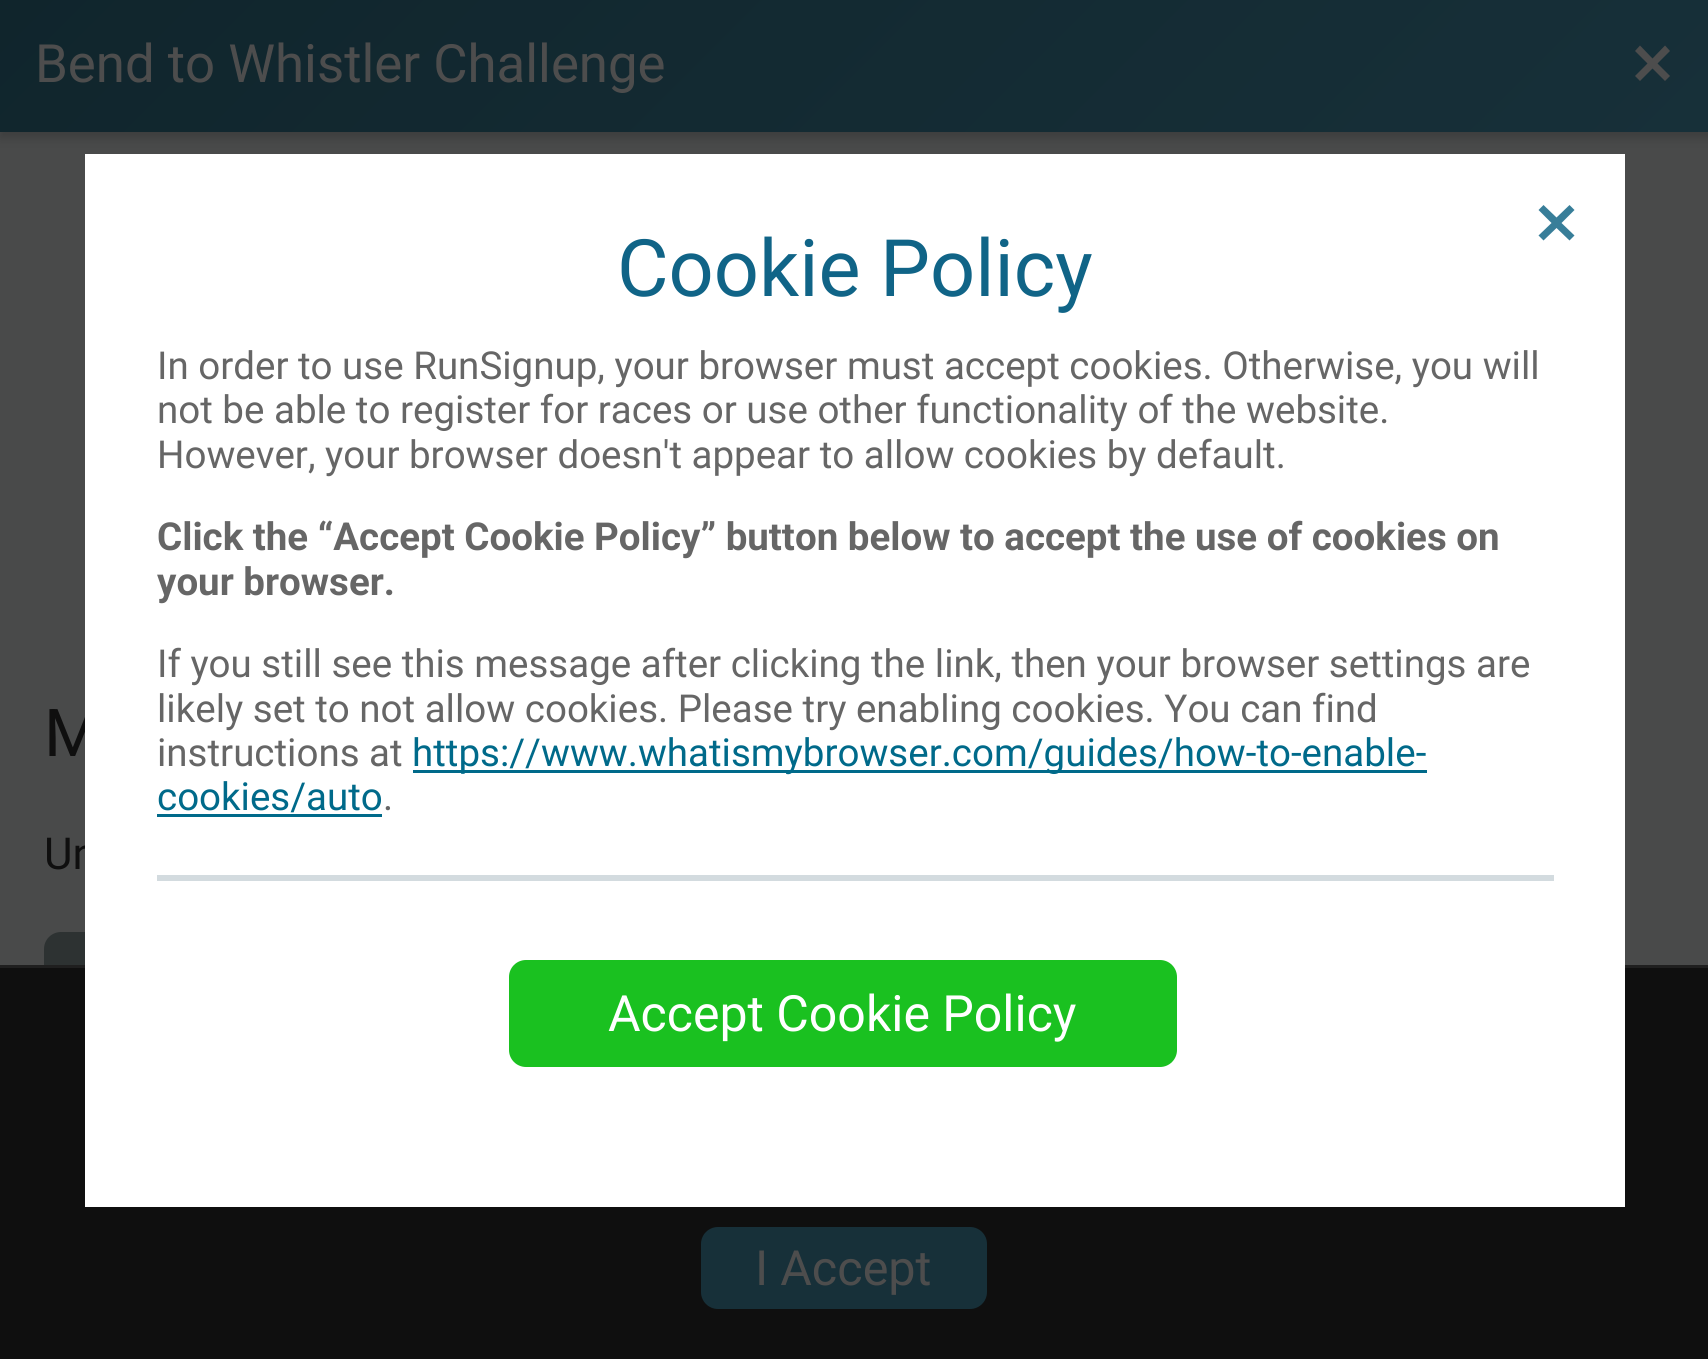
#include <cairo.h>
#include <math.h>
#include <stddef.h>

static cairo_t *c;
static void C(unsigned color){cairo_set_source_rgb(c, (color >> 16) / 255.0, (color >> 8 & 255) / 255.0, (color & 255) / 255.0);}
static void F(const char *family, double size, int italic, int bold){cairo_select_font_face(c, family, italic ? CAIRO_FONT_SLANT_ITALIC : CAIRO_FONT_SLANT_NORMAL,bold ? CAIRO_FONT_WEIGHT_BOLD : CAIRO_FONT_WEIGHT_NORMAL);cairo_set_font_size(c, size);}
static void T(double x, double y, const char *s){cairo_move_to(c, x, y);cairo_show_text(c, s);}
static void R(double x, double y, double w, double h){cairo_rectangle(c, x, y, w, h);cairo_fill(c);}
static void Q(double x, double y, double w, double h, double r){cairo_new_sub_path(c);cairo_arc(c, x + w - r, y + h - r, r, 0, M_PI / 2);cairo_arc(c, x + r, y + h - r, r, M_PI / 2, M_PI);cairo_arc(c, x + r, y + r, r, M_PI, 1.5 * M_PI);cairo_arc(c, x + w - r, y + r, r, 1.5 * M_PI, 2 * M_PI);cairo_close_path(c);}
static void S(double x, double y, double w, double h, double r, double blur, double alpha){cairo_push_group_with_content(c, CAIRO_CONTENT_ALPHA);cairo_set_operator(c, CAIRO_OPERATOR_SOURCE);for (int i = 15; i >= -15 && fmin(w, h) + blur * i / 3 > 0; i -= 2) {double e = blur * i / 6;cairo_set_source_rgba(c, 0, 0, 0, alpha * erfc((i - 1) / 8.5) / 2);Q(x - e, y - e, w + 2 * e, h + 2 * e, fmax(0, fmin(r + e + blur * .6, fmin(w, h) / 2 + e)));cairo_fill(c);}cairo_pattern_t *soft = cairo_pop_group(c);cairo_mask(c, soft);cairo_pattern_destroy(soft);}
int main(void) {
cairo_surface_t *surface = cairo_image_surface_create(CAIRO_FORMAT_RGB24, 1708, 1359);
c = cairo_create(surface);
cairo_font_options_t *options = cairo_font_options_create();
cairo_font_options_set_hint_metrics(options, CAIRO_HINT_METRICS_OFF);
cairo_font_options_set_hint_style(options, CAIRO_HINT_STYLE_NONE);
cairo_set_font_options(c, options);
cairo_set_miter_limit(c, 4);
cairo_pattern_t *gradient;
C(0x494a4a);
cairo_paint(c);
C(0x000000);
S(0,6,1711,132,0,5.5,.18);
gradient = cairo_pattern_create_linear(1316,527,395,-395);
cairo_pattern_add_color_stop_rgba(gradient,0,0.09,0.188,0.224,1);
cairo_pattern_add_color_stop_rgba(gradient,1,0.063,0.145,0.173,1);
cairo_set_source(c,gradient);
cairo_pattern_destroy(gradient);
R(0,0,1708,132);
F("Roboto",52.75,0,0);
C(0x4d4d4d);
T(35,82,"Bend to Whistler Challenge");
cairo_new_path(c);
cairo_move_to(c,1635,76);
cairo_line_to(c,1647.5,63.5);
cairo_line_to(c,1635,51);
cairo_line_to(c,1640,45.5);
cairo_line_to(c,1652.5,58.5);
cairo_line_to(c,1665,45.5);
cairo_line_to(c,1670,51);
cairo_line_to(c,1657.5,63.5);
cairo_line_to(c,1670,76);
cairo_line_to(c,1665,81);
cairo_line_to(c,1652.5,68.5);
cairo_line_to(c,1640,81);
cairo_close_path(c);
cairo_fill(c);
F("Roboto",66,0,0);
C(0x0f0f0f);
T(44,756,"M");
F("Roboto",44,0,0);
T(44,869,"Un");
C(0x2d3232);
Q(44,932,633,83,17);
cairo_fill(c);
C(0x0f0f0f);
R(0,968,1708,391);
C(0x1f1f1f);
R(0,965,1708,3);
cairo_rectangle(c,86.5,155.5,1537,1050);
C(0xffffff);
cairo_set_line_width(c,3);
cairo_stroke(c);
R(88,157,1534,1047);
C(0x387e99);
cairo_new_path(c);
cairo_move_to(c,1538.5,235.5);
cairo_line_to(c,1551.5,223);
cairo_line_to(c,1538.5,210);
cairo_line_to(c,1543.5,205);
cairo_line_to(c,1556.5,217.5);
cairo_line_to(c,1569.5,205);
cairo_line_to(c,1574.5,210);
cairo_line_to(c,1561.5,223);
cairo_line_to(c,1574.5,235.5);
cairo_line_to(c,1569.5,240.5);
cairo_line_to(c,1556.5,228);
cairo_line_to(c,1543.5,240.5);
cairo_close_path(c);
cairo_fill(c);
F("Roboto",79.25,0,0);
C(0x106487);
T(617,296,"Cookie Policy");
F("Roboto",38.5,0,0);
C(0x666666);
T(157,379,"In order to use RunSignup, your browser must accept cookies. Otherwise, you will");
T(157,423,"not be able to register for races or use other functionality of the website.");
T(157,468,"However, your browser doesn't appear to allow cookies by default.");
F("Roboto",38.5,0,1);
T(157,550,"Click the “Accept Cookie Policy” button below to accept the use of cookies on");
T(157,595,"your browser.");
F("Roboto",38.5,0,0);
T(157,677,"If you still see this message after clicking the link, then your browser settings are");
T(157,722,"likely set to not allow cookies. Please try enabling cookies. You can find");
T(157,766,"instructions at");
C(0x006a8a);
R(413,770,1014,3);
T(412,766,"https://www.whatismybrowser.com/guides/how-to-enable-");
T(157,810,"cookies/auto");
R(157,814,225,3);
C(0x666666);
T(383,810,".");
C(0xd3dbdf);
R(157,875,1397,6);
C(0x1ac120);
Q(509,960,668,107,17);
cairo_fill(c);
F("Roboto",50,0,0);
C(0xffffff);
T(608,1031,"Accept Cookie Policy");
C(0x173039);
Q(701,1227,286,82,17);
cairo_fill(c);
F("Roboto",48.5,0,0);
C(0x4d4d4d);
T(755,1285,"I Accept");
cairo_surface_write_to_png(surface, "o.png");
cairo_font_options_destroy(options);
cairo_destroy(c);
cairo_surface_destroy(surface);
return 0;
}
